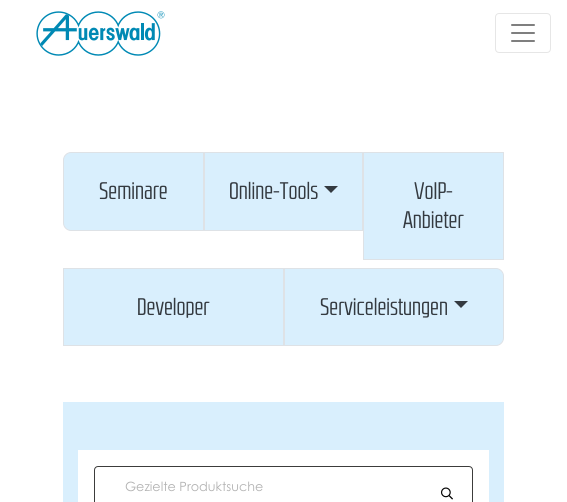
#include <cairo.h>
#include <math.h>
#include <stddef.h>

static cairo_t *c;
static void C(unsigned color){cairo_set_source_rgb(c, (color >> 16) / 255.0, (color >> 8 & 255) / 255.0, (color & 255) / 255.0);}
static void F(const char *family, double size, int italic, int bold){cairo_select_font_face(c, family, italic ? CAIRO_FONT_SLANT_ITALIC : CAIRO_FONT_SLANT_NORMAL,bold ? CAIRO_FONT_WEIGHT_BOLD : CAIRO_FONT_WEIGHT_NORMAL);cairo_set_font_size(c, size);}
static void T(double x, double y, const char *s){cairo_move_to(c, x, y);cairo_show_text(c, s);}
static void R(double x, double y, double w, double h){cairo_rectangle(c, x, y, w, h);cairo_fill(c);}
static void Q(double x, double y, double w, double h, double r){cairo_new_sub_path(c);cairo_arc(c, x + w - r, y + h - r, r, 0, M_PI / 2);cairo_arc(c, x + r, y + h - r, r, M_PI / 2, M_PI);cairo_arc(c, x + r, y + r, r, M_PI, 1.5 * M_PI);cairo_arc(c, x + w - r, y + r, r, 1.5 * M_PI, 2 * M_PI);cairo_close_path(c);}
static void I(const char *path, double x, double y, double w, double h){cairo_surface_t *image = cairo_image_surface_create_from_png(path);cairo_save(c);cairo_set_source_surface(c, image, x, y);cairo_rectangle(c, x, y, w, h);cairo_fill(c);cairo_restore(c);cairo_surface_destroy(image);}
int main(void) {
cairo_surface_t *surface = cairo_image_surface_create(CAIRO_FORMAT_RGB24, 567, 502);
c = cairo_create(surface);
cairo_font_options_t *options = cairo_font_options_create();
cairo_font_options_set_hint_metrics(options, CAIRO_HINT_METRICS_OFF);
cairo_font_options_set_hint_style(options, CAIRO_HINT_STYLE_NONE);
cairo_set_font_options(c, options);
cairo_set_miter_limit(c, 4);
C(0xffffff);
cairo_paint(c);
I("1.png",36,11,129,45);
Q(495.5,13.5,55,39,3.5);
C(0xe6e6e6);
cairo_set_line_width(c,1);
cairo_stroke(c);
I("2.png",511,24,24,18);
C(0xd9effd);
cairo_new_path(c);
cairo_move_to(c,71,152.5);
cairo_line_to(c,203.5,152.5);
cairo_line_to(c,203.5,230.5);
cairo_line_to(c,71,230.5);
cairo_curve_to(c,67,230.5,63.5,227,63.5,223);
cairo_line_to(c,63.5,160);
cairo_curve_to(c,63.5,156,67,152.5,71,152.5);
cairo_close_path(c);
cairo_fill_preserve(c);
C(0xdee2e6);
cairo_stroke(c);
F("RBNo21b",24,0,0);
C(0x343a40);
T(99,199,"Seminare");
C(0xd9effd);
cairo_rectangle(c,204.5,152.5,158,78);
cairo_fill_preserve(c);
C(0xdee2e6);
cairo_stroke(c);
C(0x343a40);
T(229,199,"Online-Tools");
cairo_new_path(c);
cairo_move_to(c,324,186);
cairo_line_to(c,338,186);
cairo_line_to(c,331,193);
cairo_close_path(c);
cairo_fill(c);
C(0xd9effd);
cairo_rectangle(c,363.5,152.5,140,107);
cairo_fill_preserve(c);
C(0xdee2e6);
cairo_stroke(c);
C(0x343a40);
T(414,199,"VoIP-");
T(403,228,"Anbieter");
C(0xd9effd);
cairo_rectangle(c,63.5,268.5,220,77);
cairo_fill_preserve(c);
C(0xdee2e6);
cairo_stroke(c);
C(0x343a40);
T(137,315,"Developer");
C(0xd9effd);
cairo_new_path(c);
cairo_move_to(c,284.5,268.5);
cairo_line_to(c,496,268.5);
cairo_curve_to(c,500,268.5,503.5,272,503.5,276);
cairo_line_to(c,503.5,338);
cairo_curve_to(c,503.5,342,500,345.5,496,345.5);
cairo_line_to(c,284.5,345.5);
cairo_close_path(c);
cairo_fill_preserve(c);
C(0xdee2e6);
cairo_stroke(c);
C(0x343a40);
T(320,315,"Serviceleistungen");
cairo_new_path(c);
cairo_move_to(c,454,301);
cairo_line_to(c,468,301);
cairo_line_to(c,461,308);
cairo_close_path(c);
cairo_fill(c);
C(0xd9effd);
R(63,402,441,100);
C(0xffffff);
R(78,450,411,52);
Q(94.5,466.5,378,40,3.5);
C(0x3c3c3b);
cairo_stroke(c);
F("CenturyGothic",12.75,0,0);
C(0xb2b2b2);
T(125,491,"Gezielte Produktsuche");
I("3.png",441,487,12,13);
cairo_surface_write_to_png(surface, "o.png");
cairo_font_options_destroy(options);
cairo_destroy(c);
cairo_surface_destroy(surface);
return 0;
}
